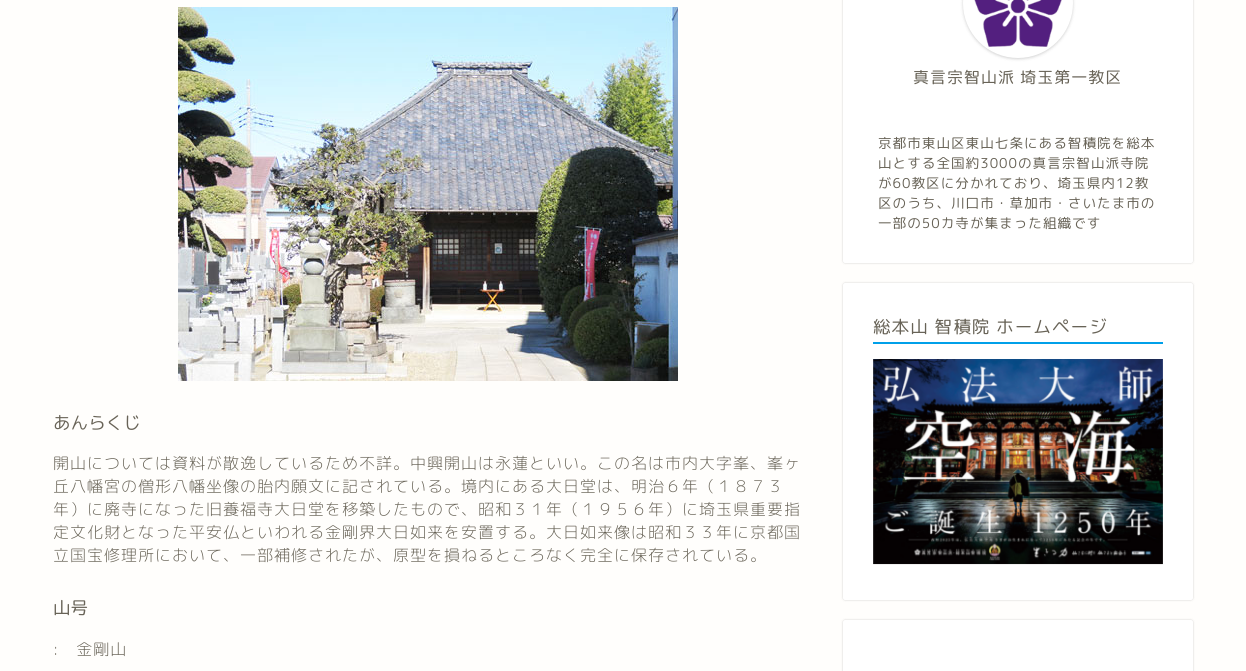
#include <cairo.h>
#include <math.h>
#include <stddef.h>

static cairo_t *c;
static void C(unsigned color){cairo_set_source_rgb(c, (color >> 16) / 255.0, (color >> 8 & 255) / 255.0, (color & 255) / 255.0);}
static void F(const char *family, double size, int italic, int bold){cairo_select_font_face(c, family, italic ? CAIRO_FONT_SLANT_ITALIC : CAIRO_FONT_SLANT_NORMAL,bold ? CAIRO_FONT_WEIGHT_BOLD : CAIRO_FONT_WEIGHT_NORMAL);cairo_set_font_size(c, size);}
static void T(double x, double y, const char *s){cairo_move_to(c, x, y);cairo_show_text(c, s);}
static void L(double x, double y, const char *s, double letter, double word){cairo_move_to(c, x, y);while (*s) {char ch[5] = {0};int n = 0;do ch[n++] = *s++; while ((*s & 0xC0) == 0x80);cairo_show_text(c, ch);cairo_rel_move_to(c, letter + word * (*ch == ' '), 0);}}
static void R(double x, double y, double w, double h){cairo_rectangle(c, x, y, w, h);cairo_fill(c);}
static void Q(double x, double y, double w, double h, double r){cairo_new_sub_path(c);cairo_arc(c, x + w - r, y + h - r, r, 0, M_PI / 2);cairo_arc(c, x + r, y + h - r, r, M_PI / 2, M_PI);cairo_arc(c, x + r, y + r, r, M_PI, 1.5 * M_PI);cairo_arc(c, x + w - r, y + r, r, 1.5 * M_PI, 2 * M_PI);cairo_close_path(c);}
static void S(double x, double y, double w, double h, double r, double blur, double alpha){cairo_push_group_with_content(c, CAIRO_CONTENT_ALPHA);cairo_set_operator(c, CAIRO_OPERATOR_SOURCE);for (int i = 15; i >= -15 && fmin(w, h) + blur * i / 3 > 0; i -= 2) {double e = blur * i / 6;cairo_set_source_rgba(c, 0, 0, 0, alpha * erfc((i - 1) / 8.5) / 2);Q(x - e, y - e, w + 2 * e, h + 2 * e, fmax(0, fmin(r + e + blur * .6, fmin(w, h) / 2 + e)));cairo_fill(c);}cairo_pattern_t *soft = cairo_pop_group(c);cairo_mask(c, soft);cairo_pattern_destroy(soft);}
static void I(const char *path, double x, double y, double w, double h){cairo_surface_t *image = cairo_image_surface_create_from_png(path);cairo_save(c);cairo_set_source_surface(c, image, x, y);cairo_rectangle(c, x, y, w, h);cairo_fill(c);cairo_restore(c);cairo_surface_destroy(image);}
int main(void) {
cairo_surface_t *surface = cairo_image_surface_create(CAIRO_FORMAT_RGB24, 1246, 671);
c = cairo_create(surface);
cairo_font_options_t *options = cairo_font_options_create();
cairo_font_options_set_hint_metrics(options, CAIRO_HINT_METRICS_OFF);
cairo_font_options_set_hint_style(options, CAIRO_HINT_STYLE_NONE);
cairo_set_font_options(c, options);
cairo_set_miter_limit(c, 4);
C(0xfffefc);
cairo_paint(c);
C(0x000000);
S(843,-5,350,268,2,1,.18);
C(0xffffff);
Q(843,-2,350,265,2);
cairo_fill(c);
C(0x000000);
S(963,-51,110,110,55,1.5,.18);
C(0xffffff);
cairo_arc(c,1018,3,55,0,2 * M_PI);
cairo_fill(c);
I("1.png",974,0,88,47);
F("Rounded Mplus 1c",16,0,0);
C(0x686357);
L(913,83,"真言宗智山派 埼玉第一教区",1,0);
F("Rounded Mplus 1c",13.6,0,0);
L(878,148,"京都市東山区東山七条にある智積院を総本",1,0);
L(878,168,"山とする全国約3000の真言宗智山派寺院",1,0);
L(878,188,"が60教区に分かれており、埼玉県内12教",1,0);
L(878,208,"区のうち、川口市・草加市・さいたま市の",1,0);
L(878,228,"一部の50カ寺が集まった組織です",1,0);
C(0x000000);
S(843,283,350,317,2,1,.18);
C(0xffffff);
Q(843,283,350,317,2);
cairo_fill(c);
C(0x00a0e9);
R(873,342,290,2);
F("Rounded Mplus 1c",17.6,0,0);
C(0x686357);
L(873,333,"総本山 智積院 ホームページ",1,0);
I("2.png",873,359,290,206);
C(0x000000);
S(843,620,350,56,2,1,.18);
C(0xffffff);
Q(843,620,350,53,2);
cairo_fill(c);
I("3.png",178,7,500,374);
C(0x686357);
T(53,429,"あんらくじ");
F("Rounded Mplus 1c Light",16,0,0);
L(53,469,"開山については資料が散逸しているため不詳。中興開山は永蓮といい。この名は市内大字峯、峯ヶ",1,0);
L(53,492,"丘八幡宮の僧形八幡坐像の胎内願文に記されている。境内にある大日堂は、明治６年（１８７３",1,0);
L(53,515,"年）に廃寺になった旧養福寺大日堂を移築したもので、昭和３１年（１９５６年）に埼玉県重要指",1,0);
L(53,538,"定文化財となった平安仏といわれる金剛界大日如来を安置する。大日如来像は昭和３３年に京都国",1,0);
L(53,561,"立国宝修理所において、一部補修されたが、原型を損ねるところなく完全に保存されている。",1,0);
F("Rounded Mplus 1c",17.6,0,0);
T(53,614,"山号");
F("Rounded Mplus 1c Light",16,0,0);
L(53,655,":　金剛山",1,0);
cairo_surface_write_to_png(surface, "o.png");
cairo_font_options_destroy(options);
cairo_destroy(c);
cairo_surface_destroy(surface);
return 0;
}
